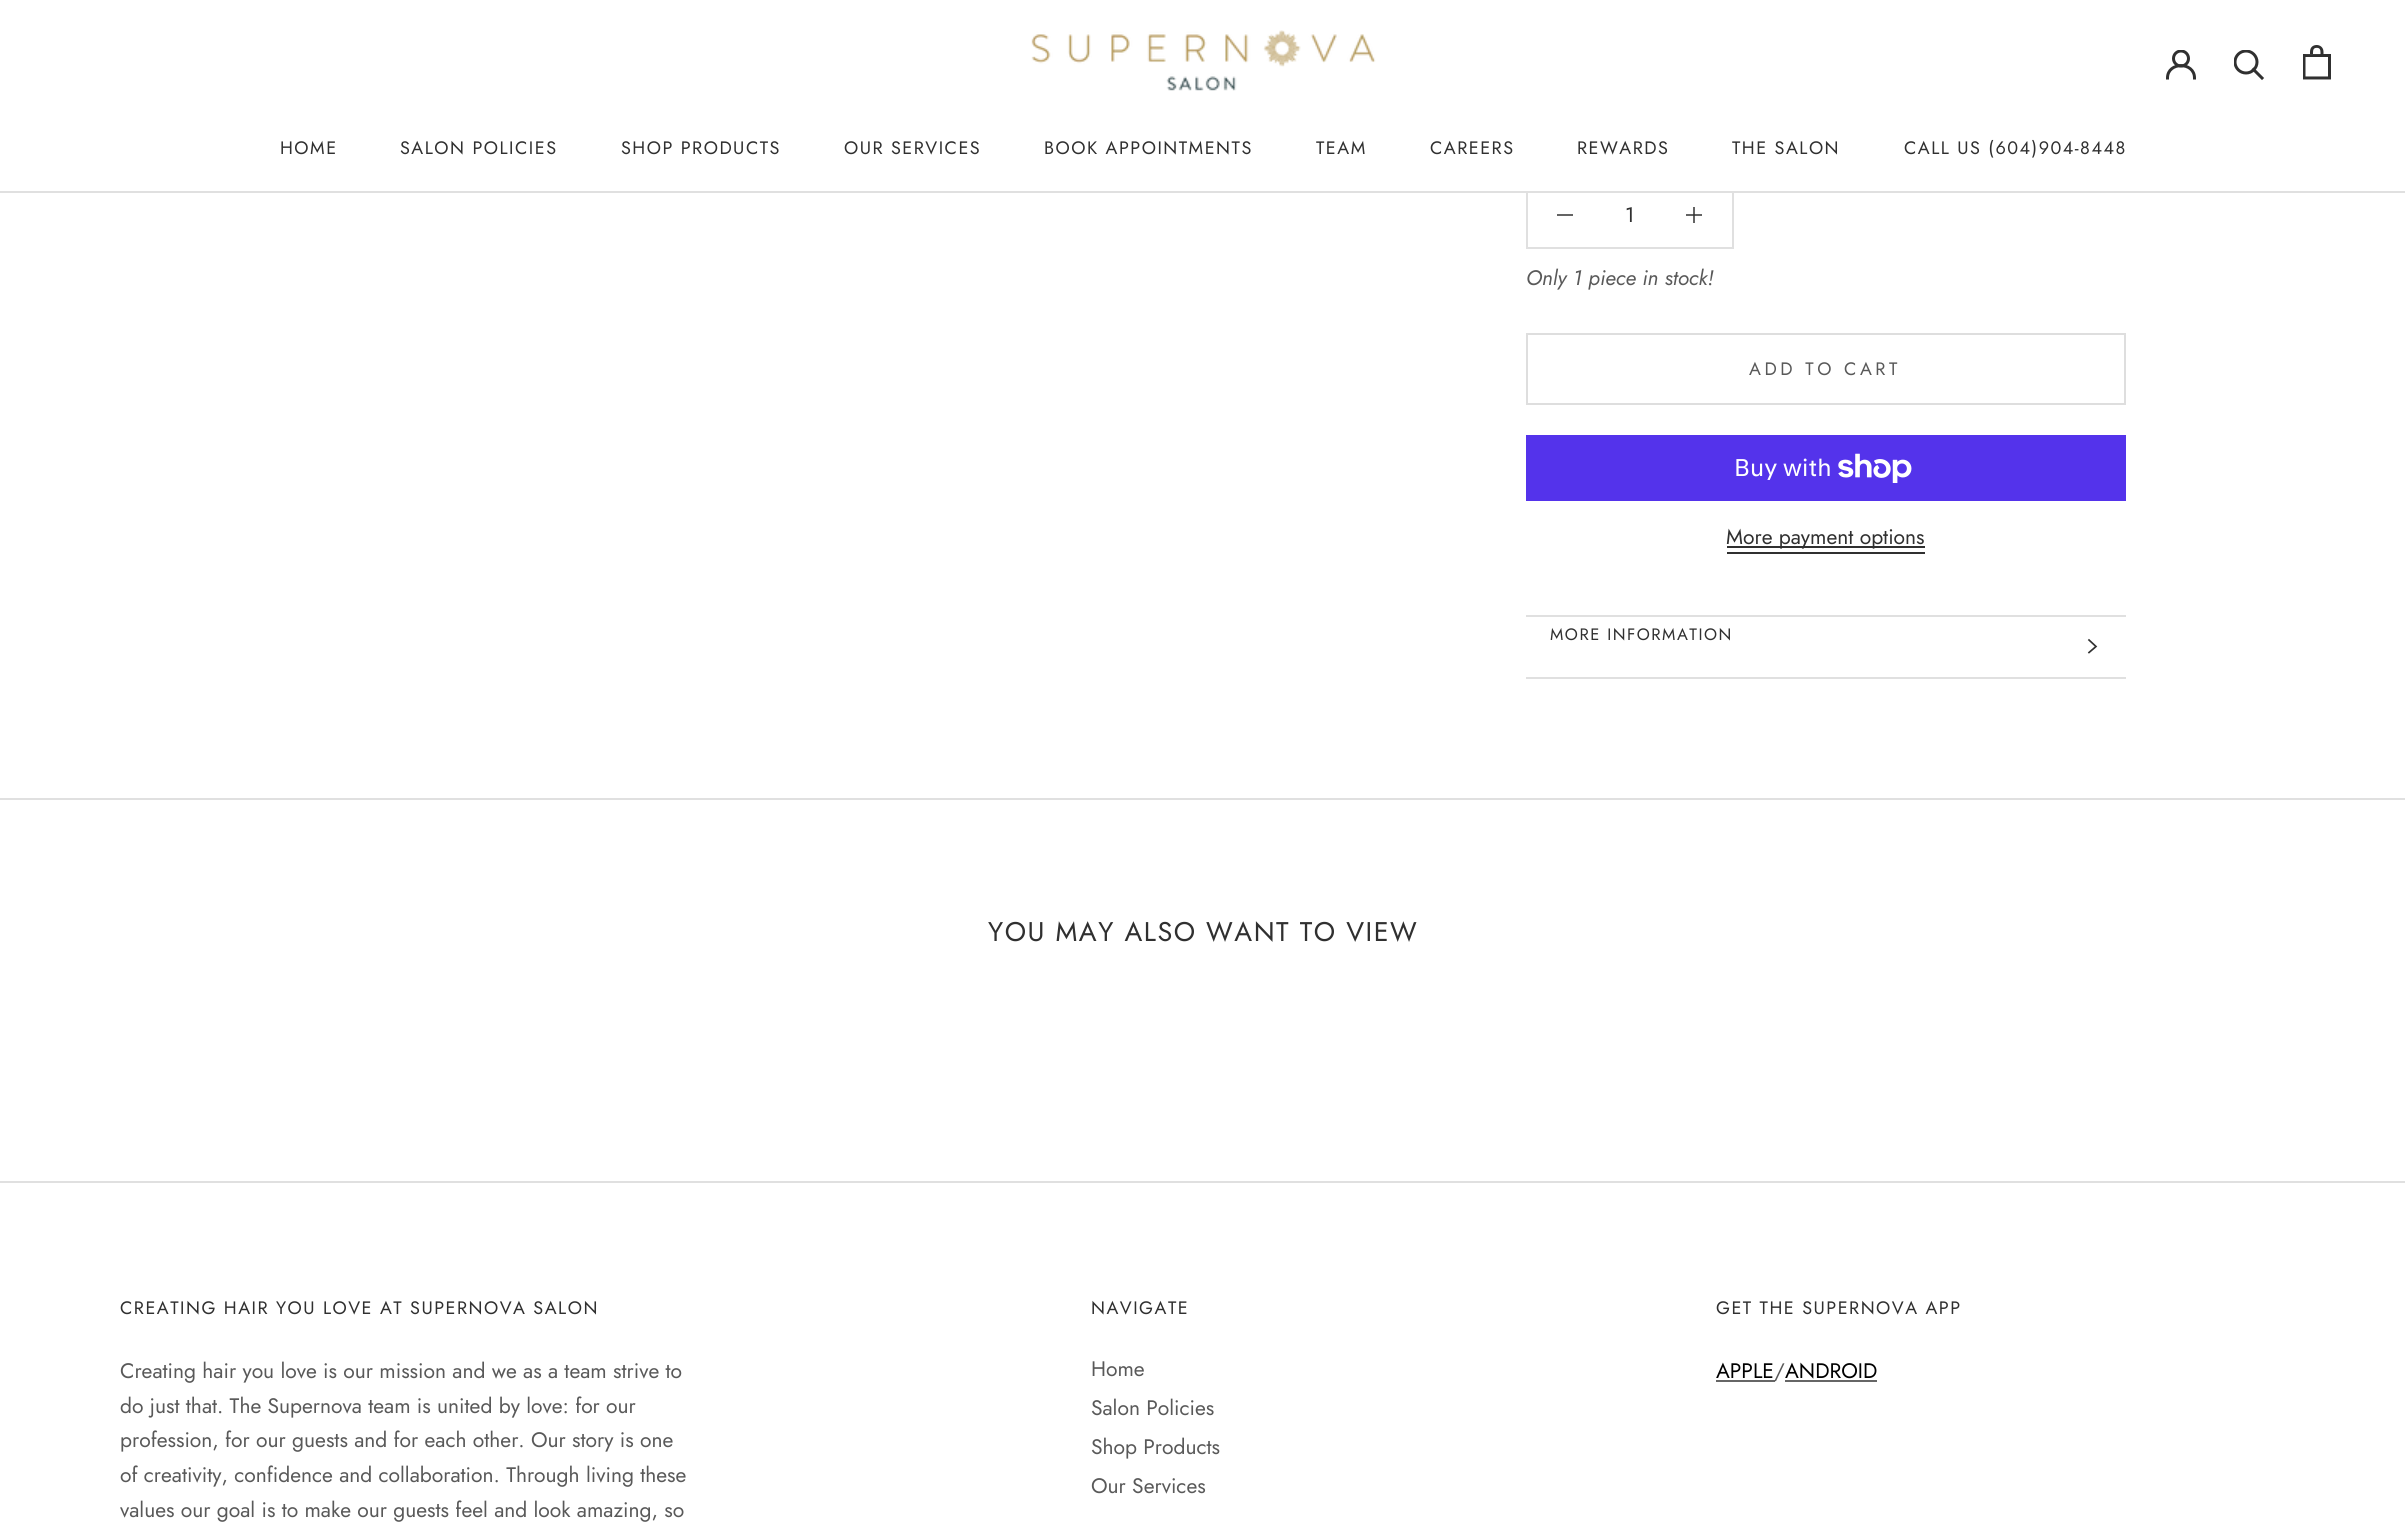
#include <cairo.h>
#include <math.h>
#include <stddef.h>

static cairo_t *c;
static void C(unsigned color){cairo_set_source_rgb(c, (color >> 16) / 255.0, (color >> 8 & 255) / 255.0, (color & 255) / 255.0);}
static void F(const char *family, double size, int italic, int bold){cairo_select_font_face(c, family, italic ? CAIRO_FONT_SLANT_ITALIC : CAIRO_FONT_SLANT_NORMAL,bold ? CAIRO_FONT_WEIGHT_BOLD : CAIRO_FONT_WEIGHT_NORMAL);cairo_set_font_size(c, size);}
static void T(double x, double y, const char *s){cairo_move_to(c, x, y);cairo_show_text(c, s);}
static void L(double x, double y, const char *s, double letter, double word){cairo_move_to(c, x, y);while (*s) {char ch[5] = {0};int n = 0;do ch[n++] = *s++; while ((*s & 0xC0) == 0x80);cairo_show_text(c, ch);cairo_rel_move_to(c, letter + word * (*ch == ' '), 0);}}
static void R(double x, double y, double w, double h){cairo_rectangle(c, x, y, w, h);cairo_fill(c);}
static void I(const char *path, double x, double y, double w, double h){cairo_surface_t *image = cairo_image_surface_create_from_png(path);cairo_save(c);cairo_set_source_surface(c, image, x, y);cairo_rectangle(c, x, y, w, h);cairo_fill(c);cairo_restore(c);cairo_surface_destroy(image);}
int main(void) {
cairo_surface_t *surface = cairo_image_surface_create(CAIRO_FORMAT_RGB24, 2405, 1527);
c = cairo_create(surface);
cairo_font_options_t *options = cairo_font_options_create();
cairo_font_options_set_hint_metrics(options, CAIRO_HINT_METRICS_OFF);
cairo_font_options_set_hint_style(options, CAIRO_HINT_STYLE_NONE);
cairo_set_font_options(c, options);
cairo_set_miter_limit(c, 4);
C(0xffffff);
cairo_paint(c);
C(0x646464);
R(1686,214,16,2);
cairo_rectangle(c,1527,183,206,65);
C(0xe0e0e0);
cairo_stroke(c);
C(0xffffff);
R(1526,182,208,9);
C(0xe0e0e0);
R(0,191,2405,2);
I("1.png",1031,30,345,61);
cairo_new_path(c);
cairo_move_to(c,2167.5,78);
cairo_curve_to(c,2167.5,61.5,2194.5,61.5,2194.5,78);
C(0x303030);
cairo_set_line_width(c,3);
cairo_set_line_cap(c,CAIRO_LINE_CAP_SQUARE);
cairo_stroke(c);
cairo_save(c);
cairo_rectangle(c,2166,50,30,30);
cairo_clip(c);
cairo_arc(c,2181,58.5,7.5,0,2 * M_PI);
cairo_set_line_cap(c,CAIRO_LINE_CAP_BUTT);
cairo_stroke(c);
cairo_restore(c);
cairo_new_path(c);
cairo_move_to(c,2262,78);
cairo_line_to(c,2253.5,69.5);
cairo_stroke(c);
cairo_save(c);
cairo_rectangle(c,2234,50,31,31);
cairo_clip(c);
cairo_arc(c,2246,62,11,0,2 * M_PI);
cairo_set_line_cap(c,CAIRO_LINE_CAP_BUTT);
cairo_stroke(c);
cairo_restore(c);
I("2.png",2303,45,28,35);
F("Jost",18,0,0);
L(280,154,"HOME",1.5,0);
L(400,154,"SALON POLICIES",1.5,0);
L(621,154,"SHOP PRODUCTS",1.5,0);
L(844,154,"OUR SERVICES",1.5,0);
L(1044,154,"BOOK APPOINTMENTS",1.5,0);
L(1316,154,"TEAM",1.5,0);
L(1430,154,"CAREERS",1.5,0);
L(1577,154,"REWARDS",1.5,0);
L(1732,154,"THE SALON",1.5,0);
L(1904,154,"CALL US (604)904-8448",1.5,0);
C(0x646464);
R(1557,214,16,2);
F("Jost",21,0,0);
C(0x303030);
T(1625,222,"1");
C(0x646464);
R(1693,207,2,16);
C(0x3d3d3d);
R(1693,214,2,2);
F("Jost",21,1,0);
C(0x595959);
T(1526,285,"Only 1 piece in stock!");
cairo_rectangle(c,1527,334,598,70);
C(0xdedede);
cairo_set_line_width(c,2);
cairo_set_line_cap(c,CAIRO_LINE_CAP_BUTT);
cairo_stroke(c);
F("Jost",18,0,0);
C(0x595959);
L(1749,375,"ADD TO CART",3.6,0);
C(0x5433eb);
R(1526,435,600,66);
F("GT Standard",24,0,0);
C(0xffffff);
T(1734,476,"Buy with");
I("3.png",1838,453,74,30);
C(0x303030);
R(1727,546,198,2);
F("Jost",21,0,0);
T(1726,544,"More payment options");
R(1727,552,198,2);
C(0xe0e0e0);
R(1526,615,600,2);
R(1526,677,600,2);
F("Jost",16.5,0,0);
C(0x303030);
L(1550,640,"MORE INFORMATION",1.5,0);
cairo_new_path(c);
cairo_move_to(c,2089,652.5);
cairo_line_to(c,2096,646.5);
cairo_line_to(c,2089,640);
cairo_set_line_width(c,1.7);
cairo_set_line_cap(c,CAIRO_LINE_CAP_SQUARE);
cairo_stroke(c);
C(0xe0e0e0);
R(0,798,2405,2);
F("Jost",27,0,0);
C(0x303030);
L(988,941,"YOU MAY ALSO WANT TO VIEW",1.5,0);
C(0xe0e0e0);
R(0,1181,2405,2);
F("Jost",18,0,0);
C(0x303030);
L(120,1314,"CREATING HAIR YOU LOVE AT SUPERNOVA SALON",1.5,0);
F("Jost",21,0,0);
C(0x595959);
T(120,1378,"Creating hair you love is our mission and we as a team strive to");
T(120,1413,"do just that. The Supernova team is united by love: for our");
T(120,1447,"profession, for our guests and for each other. Our story is one");
T(120,1482,"of creativity, confidence and collaboration. Through living these");
T(120,1517,"values our goal is to make our guests feel and look amazing, so");
F("Jost",18,0,0);
C(0x303030);
L(1091,1314,"NAVIGATE",1.5,0);
F("Jost",21,0,0);
C(0x595959);
T(1091,1376,"Home");
T(1091,1415,"Salon Policies");
T(1091,1454,"Shop Products");
T(1091,1493,"Our Services");
F("Jost",18,0,0);
C(0x303030);
L(1716,1314,"GET THE SUPERNOVA APP",1.5,0);
F("Jost",21,0,0);
C(0x000000);
T(1716,1378,"APPLE");
C(0x666666);
R(1716,1380,59,2);
C(0x595959);
T(1774,1378,"/");
C(0x000000);
T(1785,1378,"ANDROID");
C(0x666666);
R(1785,1380,92,2);
cairo_surface_write_to_png(surface, "o.png");
cairo_font_options_destroy(options);
cairo_destroy(c);
cairo_surface_destroy(surface);
return 0;
}
